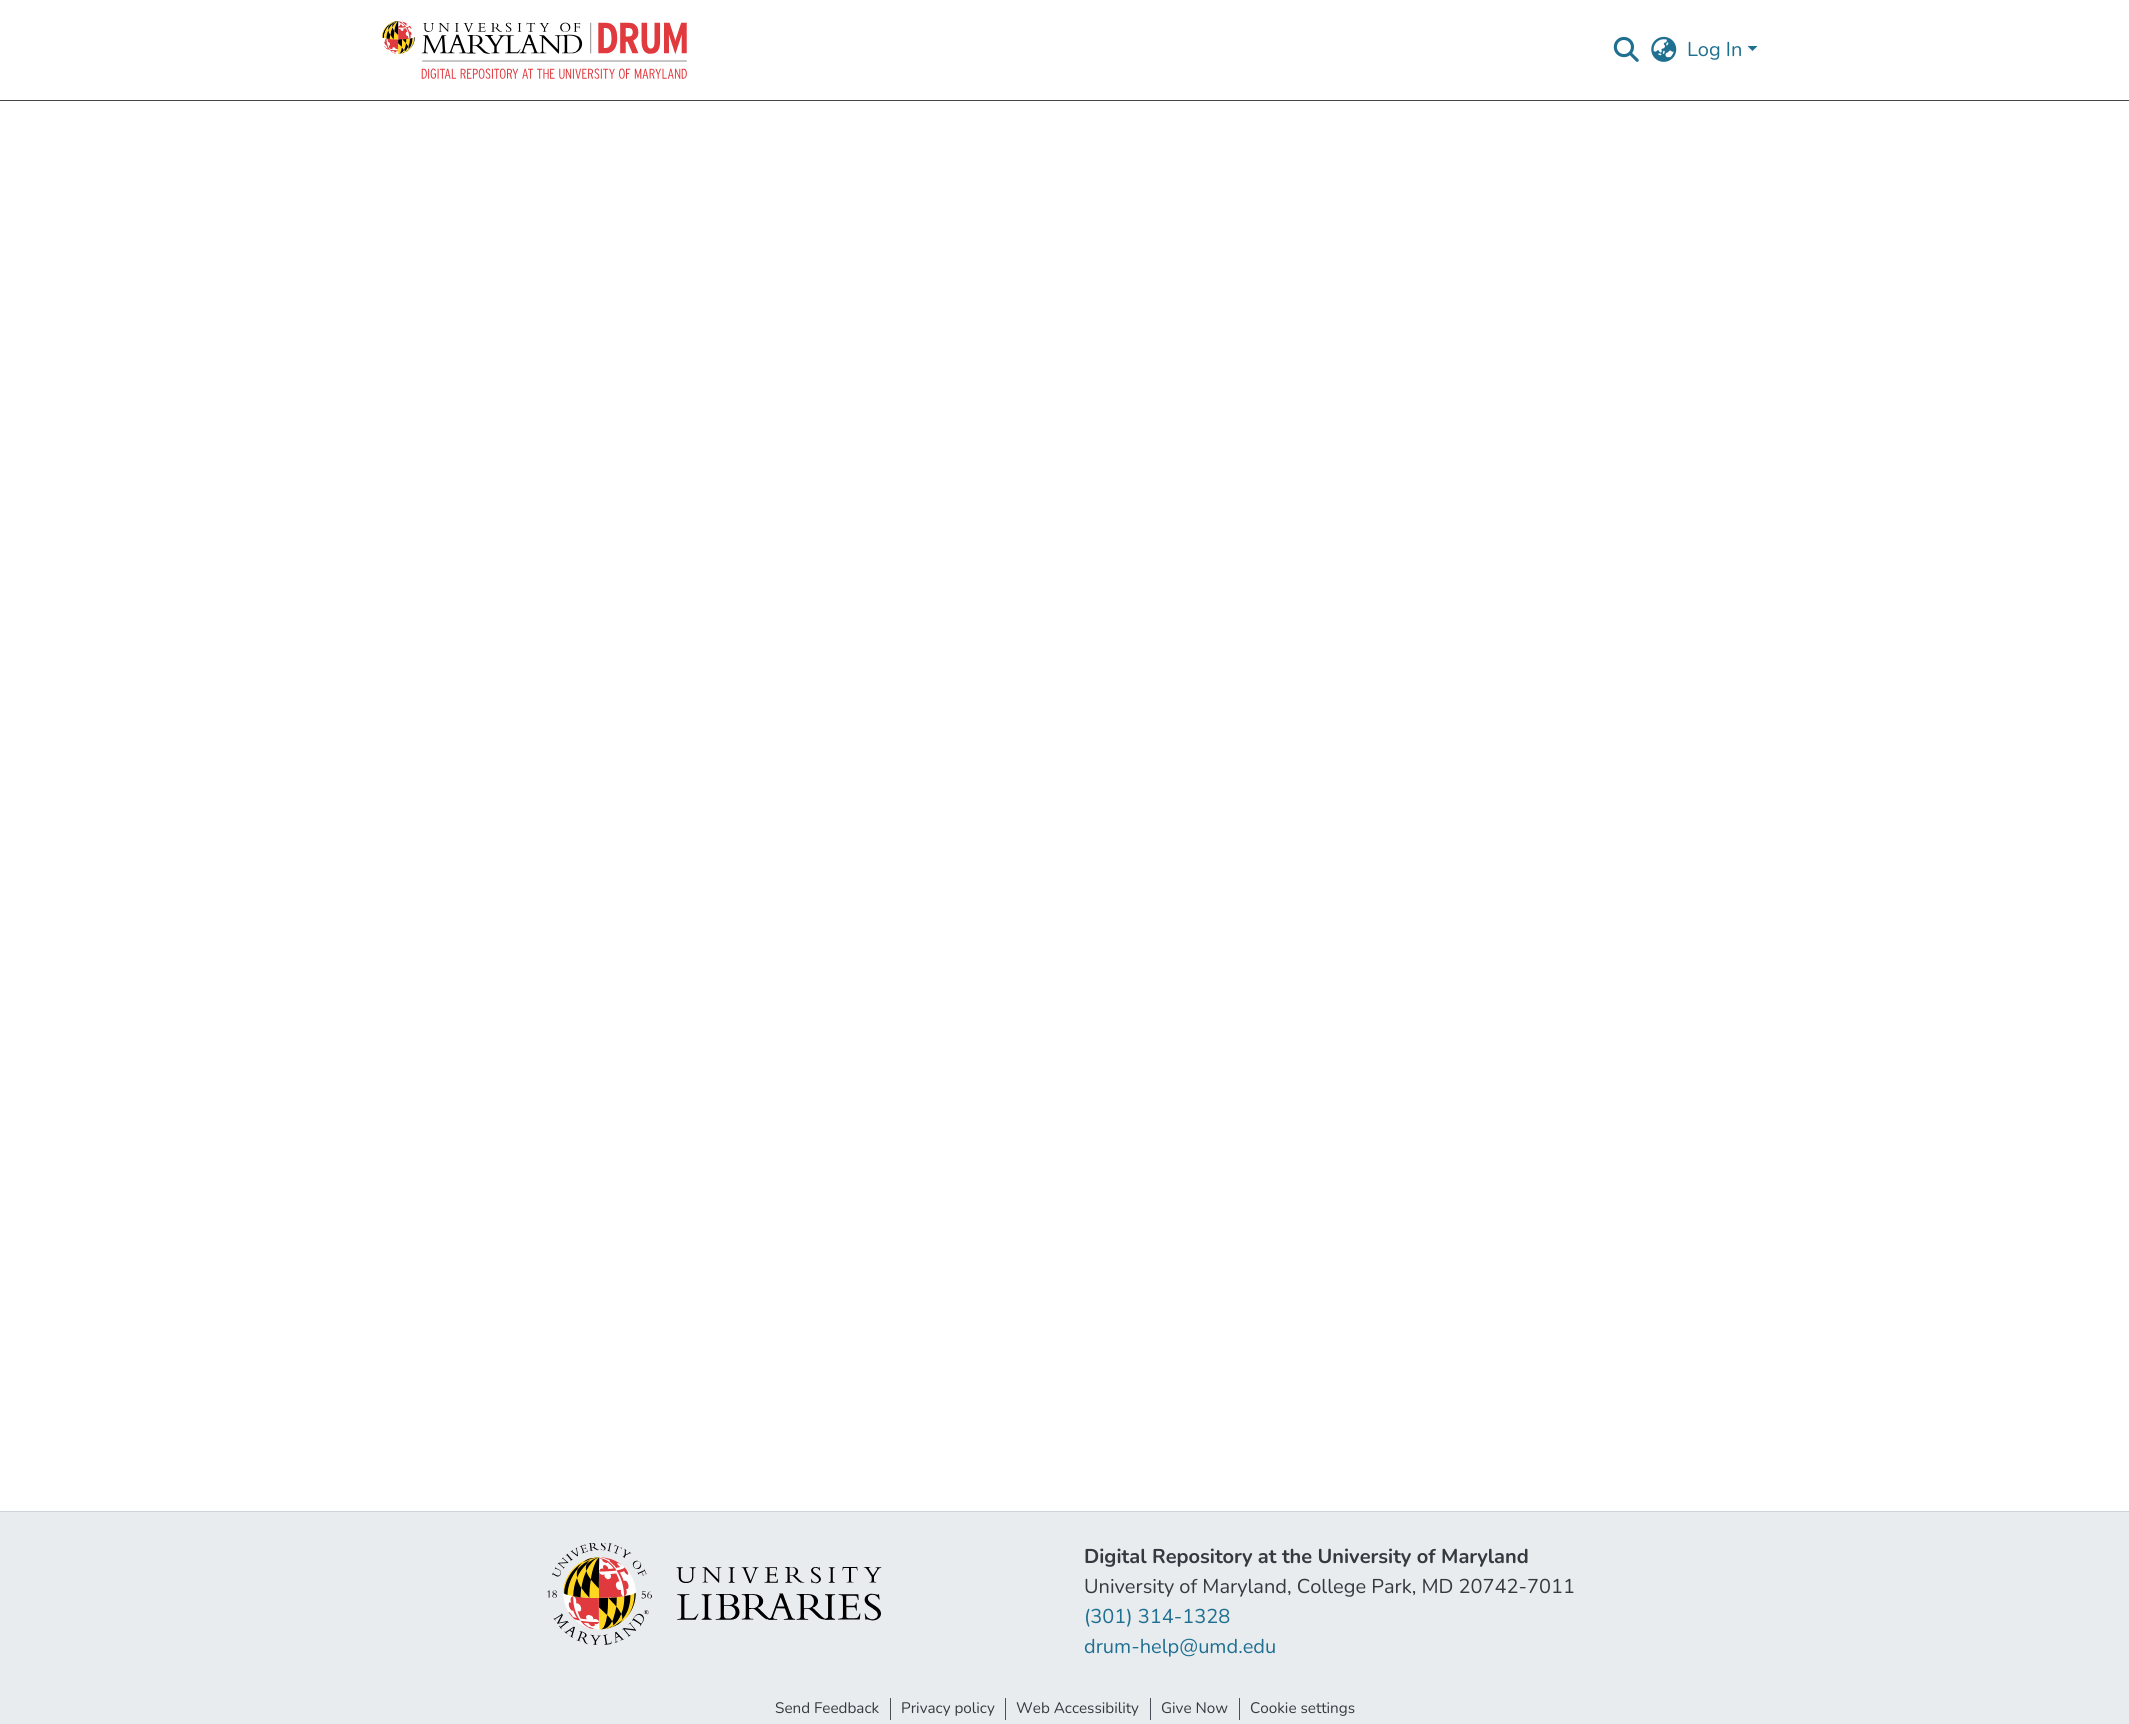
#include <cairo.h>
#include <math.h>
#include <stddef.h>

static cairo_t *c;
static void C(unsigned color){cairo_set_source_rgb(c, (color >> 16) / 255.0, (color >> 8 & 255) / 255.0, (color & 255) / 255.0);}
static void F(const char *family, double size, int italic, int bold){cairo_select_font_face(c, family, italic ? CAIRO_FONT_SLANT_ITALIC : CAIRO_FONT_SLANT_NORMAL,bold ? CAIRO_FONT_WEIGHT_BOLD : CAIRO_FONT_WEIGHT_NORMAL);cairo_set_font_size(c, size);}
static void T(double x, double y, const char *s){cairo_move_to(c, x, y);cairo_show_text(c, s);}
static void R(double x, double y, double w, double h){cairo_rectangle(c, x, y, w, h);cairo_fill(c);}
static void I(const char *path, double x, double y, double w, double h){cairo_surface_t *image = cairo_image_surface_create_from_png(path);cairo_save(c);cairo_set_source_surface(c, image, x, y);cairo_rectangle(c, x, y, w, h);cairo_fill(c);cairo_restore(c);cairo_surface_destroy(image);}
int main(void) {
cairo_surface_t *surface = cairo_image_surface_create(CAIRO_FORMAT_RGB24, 2129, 1724);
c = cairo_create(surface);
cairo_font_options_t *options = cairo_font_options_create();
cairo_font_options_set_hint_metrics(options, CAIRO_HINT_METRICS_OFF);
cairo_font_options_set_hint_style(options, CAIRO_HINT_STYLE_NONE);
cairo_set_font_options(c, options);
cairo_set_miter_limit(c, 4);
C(0xffffff);
cairo_paint(c);
C(0x454545);
R(0,100,2129,1);
I("1.png",381,20,306,59);
I("2.png",1613,36,26,26);
I("3.png",1651,36,26,26);
F("Nunito",20,0,0);
C(0x1e6f90);
T(1687,56,"Log In");
cairo_new_path(c);
cairo_move_to(c,1747.5,46);
cairo_line_to(c,1757.5,46);
cairo_line_to(c,1752.5,51);
cairo_close_path(c);
cairo_fill(c);
C(0xe9ecef);
R(0,1512,2129,212);
C(0xced4da);
R(0,1511,2129,1);
I("4.png",547,1543,335,102);
F("Nunito",20,0,1);
C(0x343a40);
T(1084,1563,"Digital Repository at the University of Maryland");
F("Nunito",20,0,0);
T(1084,1593,"University of Maryland, College Park, MD 20742-7011");
C(0x1e6f90);
T(1084,1623,"(301) 314-1328");
T(1084,1653,"drum-help@umd.edu");
F("Nunito",15.25,0,0);
C(0x343a40);
T(775,1713,"Send Feedback");
C(0x495057);
R(890,1698,1,22);
C(0x343a40);
T(901,1713,"Privacy policy");
C(0x495057);
R(1005,1698,1,22);
C(0x343a40);
T(1016,1713,"Web Accessibility");
C(0x495057);
R(1150,1698,1,22);
C(0x343a40);
T(1161,1713,"Give Now");
C(0x495057);
R(1239,1698,1,22);
C(0x343a40);
T(1250,1713,"Cookie settings");
cairo_surface_write_to_png(surface, "o.png");
cairo_font_options_destroy(options);
cairo_destroy(c);
cairo_surface_destroy(surface);
return 0;
}
